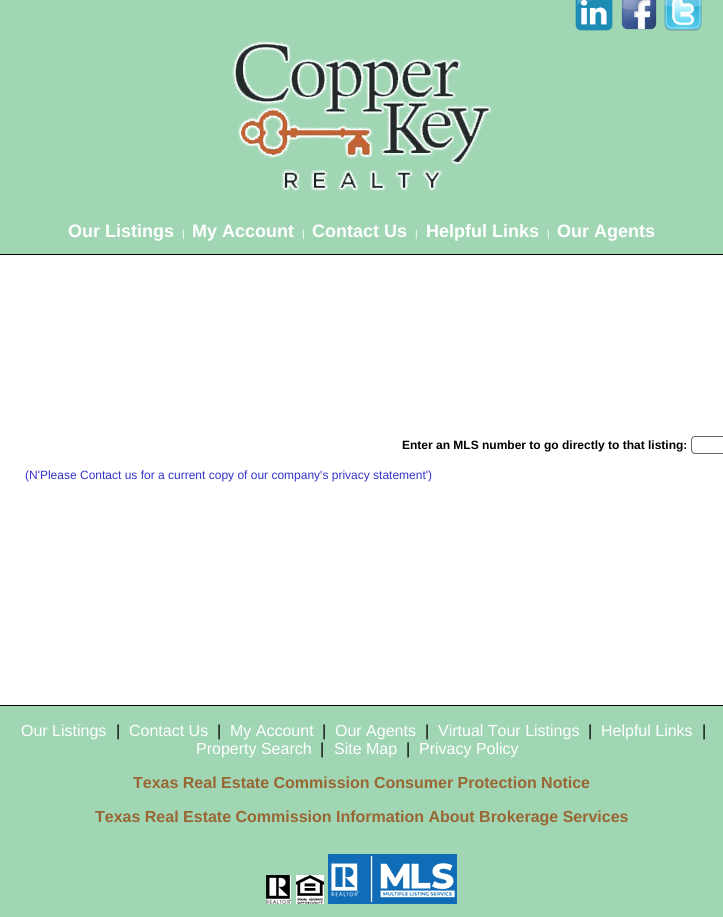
#include <cairo.h>
#include <math.h>
#include <stddef.h>

static cairo_t *c;
static void C(unsigned color){cairo_set_source_rgb(c, (color >> 16) / 255.0, (color >> 8 & 255) / 255.0, (color & 255) / 255.0);}
static void F(const char *family, double size, int italic, int bold){cairo_select_font_face(c, family, italic ? CAIRO_FONT_SLANT_ITALIC : CAIRO_FONT_SLANT_NORMAL,bold ? CAIRO_FONT_WEIGHT_BOLD : CAIRO_FONT_WEIGHT_NORMAL);cairo_set_font_size(c, size);}
static void T(double x, double y, const char *s){cairo_move_to(c, x, y);cairo_show_text(c, s);}
static void R(double x, double y, double w, double h){cairo_rectangle(c, x, y, w, h);cairo_fill(c);}
static void Q(double x, double y, double w, double h, double r){cairo_new_sub_path(c);cairo_arc(c, x + w - r, y + h - r, r, 0, M_PI / 2);cairo_arc(c, x + r, y + h - r, r, M_PI / 2, M_PI);cairo_arc(c, x + r, y + r, r, M_PI, 1.5 * M_PI);cairo_arc(c, x + w - r, y + r, r, 1.5 * M_PI, 2 * M_PI);cairo_close_path(c);}
static void I(const char *path, double x, double y, double w, double h){cairo_surface_t *image = cairo_image_surface_create_from_png(path);cairo_save(c);cairo_set_source_surface(c, image, x, y);cairo_rectangle(c, x, y, w, h);cairo_fill(c);cairo_restore(c);cairo_surface_destroy(image);}
int main(void) {
cairo_surface_t *surface = cairo_image_surface_create(CAIRO_FORMAT_RGB24, 723, 917);
c = cairo_create(surface);
cairo_font_options_t *options = cairo_font_options_create();
cairo_font_options_set_hint_metrics(options, CAIRO_HINT_METRICS_OFF);
cairo_font_options_set_hint_style(options, CAIRO_HINT_STYLE_NONE);
cairo_set_font_options(c, options);
cairo_set_miter_limit(c, 4);
C(0xffffff);
cairo_paint(c);
C(0xa0d6b4);
R(0,0,723,254);
I("1.png",575,0,38,31);
I("2.png",621,0,36,30);
I("3.png",664,0,38,31);
C(0x000000);
R(0,254,723,1);
I("4.png",232,41,260,150);
F("Liberation Sans",18,0,1);
C(0xffffff);
T(68,237,"Our Listings");
F("Liberation Sans",10,0,0);
T(182,237,"|");
F("Liberation Sans",18,0,1);
T(192,237,"My Account");
F("Liberation Sans",10,0,0);
T(302,237,"|");
F("Liberation Sans",18,0,1);
T(312,237,"Contact Us");
F("Liberation Sans",10,0,0);
T(415,237,"|");
F("Liberation Sans",18,0,1);
T(426,237,"Helpful Links");
F("Liberation Sans",10,0,0);
T(547,237,"|");
F("Liberation Sans",18,0,1);
T(557,237,"Our Agents");
F("Liberation Sans",12,0,1);
C(0x000000);
T(402,449,"Enter an MLS number to go directly to that listing:");
Q(691.5,436.5,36,17,3.5);
C(0x666666);
cairo_set_line_width(c,1);
cairo_stroke(c);
F("Liberation Sans",12,0,0);
C(0x3333cc);
T(25,479,"(N'Please Contact us for a current copy of our company's privacy statement')");
C(0xa0d6b4);
R(0,706,723,211);
C(0x000000);
R(0,705,723,1);
F("Liberation Sans",16,0,0);
C(0xffffff);
T(21,736,"Our Listings");
C(0x000000);
T(116,736,"|");
C(0xffffff);
T(129,736,"Contact Us");
C(0x000000);
T(217,736,"|");
C(0xffffff);
T(230,736,"My Account");
C(0x000000);
T(322,736,"|");
C(0xffffff);
T(335,736,"Our Agents");
C(0x000000);
T(425,736,"|");
C(0xffffff);
T(438,736,"Virtual Tour Listings");
C(0x000000);
T(588,736,"|");
C(0xffffff);
T(601,736,"Helpful Links");
C(0x000000);
T(702,736,"|");
C(0xffffff);
T(196,754,"Property Search");
C(0x000000);
T(320,754,"|");
C(0xffffff);
T(334,754,"Site Map");
C(0x000000);
T(406,754,"|");
C(0xffffff);
T(419,754,"Privacy Policy");
F("Liberation Sans",16,0,1);
C(0x996633);
T(133,788,"Texas Real Estate Commission Consumer Protection Notice");
T(95,822,"Texas Real Estate Commission Information About Brokerage Services");
I("5.png",266,875,25,29);
I("6.png",296,875,28,29);
I("7.png",328,854,129,50);
cairo_surface_write_to_png(surface, "o.png");
cairo_font_options_destroy(options);
cairo_destroy(c);
cairo_surface_destroy(surface);
return 0;
}
